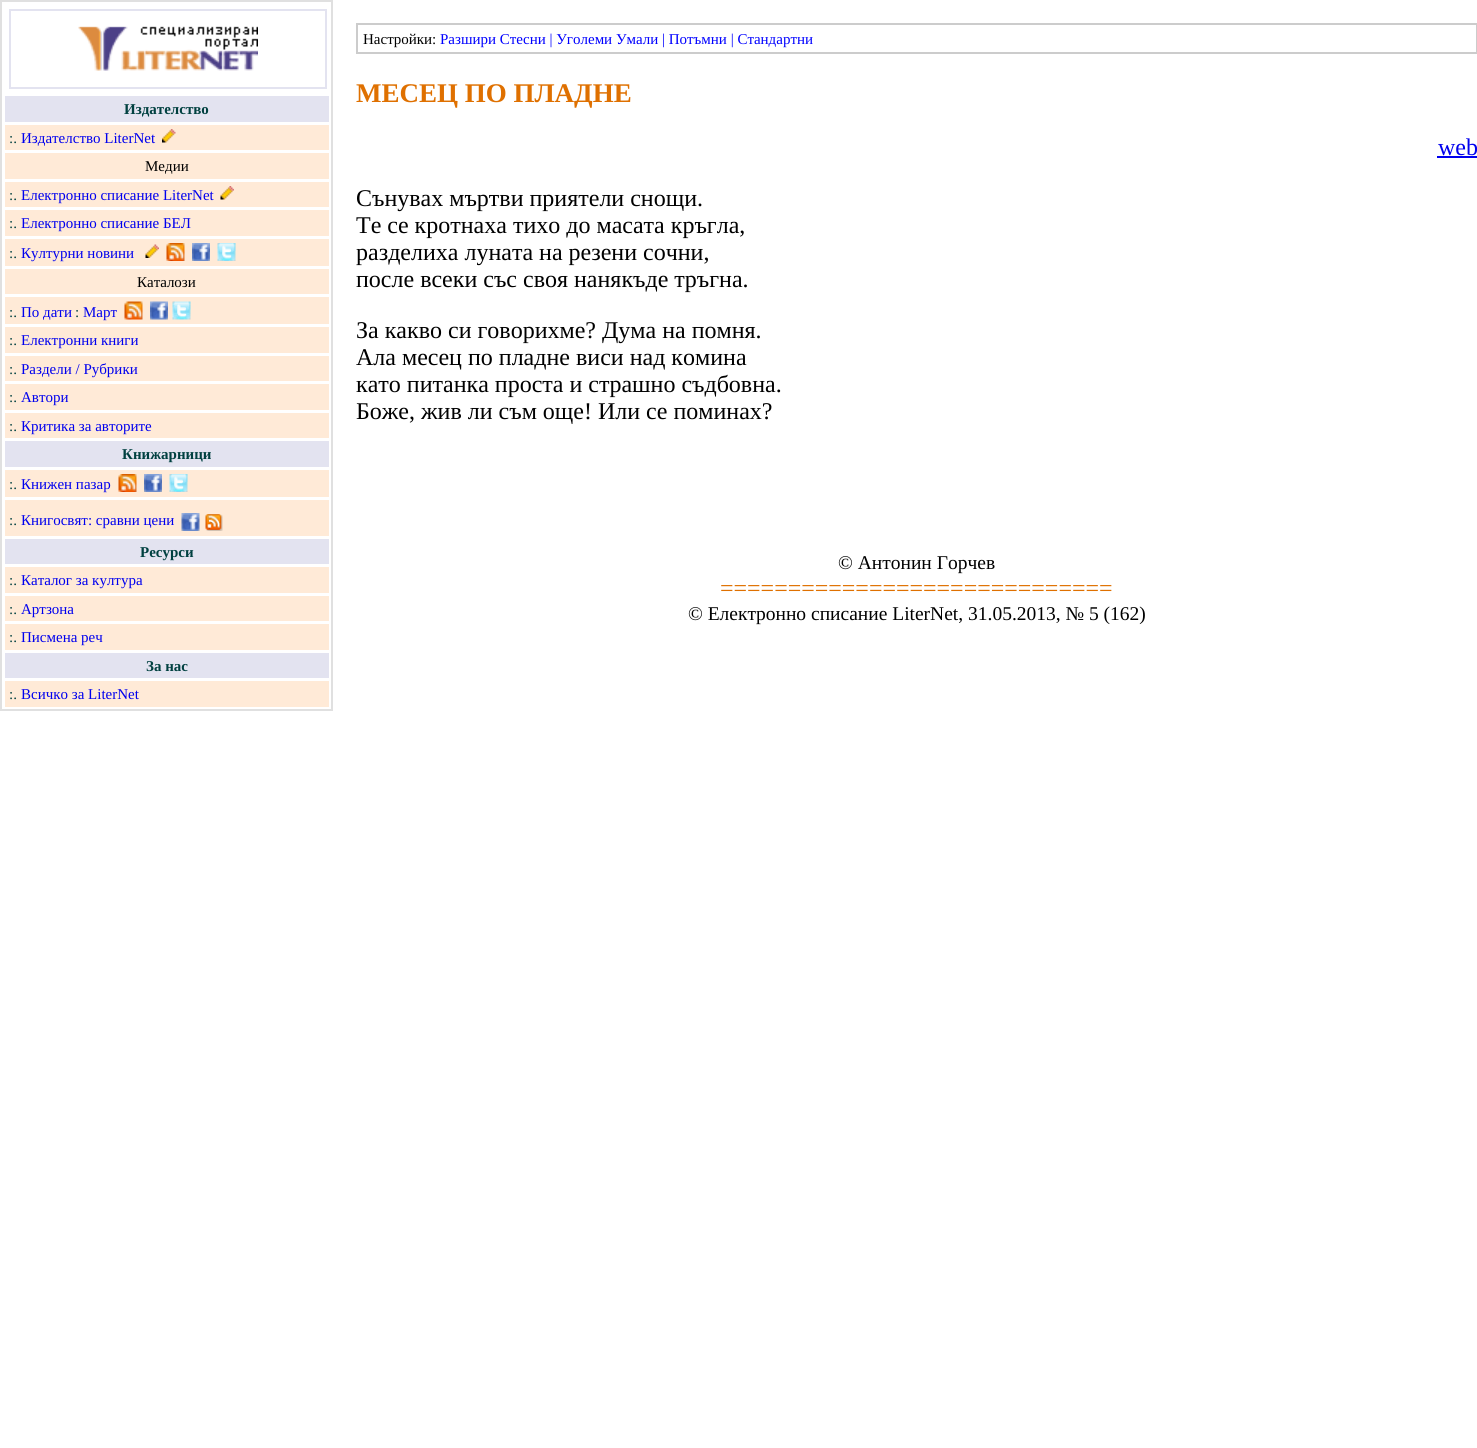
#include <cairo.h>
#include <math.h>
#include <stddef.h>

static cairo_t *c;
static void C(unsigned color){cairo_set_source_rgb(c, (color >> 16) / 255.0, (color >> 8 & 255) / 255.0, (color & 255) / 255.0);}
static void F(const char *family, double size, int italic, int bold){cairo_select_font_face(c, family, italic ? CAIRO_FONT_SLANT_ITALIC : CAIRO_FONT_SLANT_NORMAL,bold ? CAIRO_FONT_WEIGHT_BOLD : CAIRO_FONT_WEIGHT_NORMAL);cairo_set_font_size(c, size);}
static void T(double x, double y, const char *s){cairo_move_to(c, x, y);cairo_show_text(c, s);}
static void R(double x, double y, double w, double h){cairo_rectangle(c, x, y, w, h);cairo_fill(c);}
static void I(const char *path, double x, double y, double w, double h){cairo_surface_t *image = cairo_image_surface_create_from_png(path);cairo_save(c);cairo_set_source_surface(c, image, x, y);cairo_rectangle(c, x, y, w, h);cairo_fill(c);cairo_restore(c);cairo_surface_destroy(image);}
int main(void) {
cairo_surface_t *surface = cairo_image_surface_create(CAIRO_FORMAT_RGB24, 1477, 1448);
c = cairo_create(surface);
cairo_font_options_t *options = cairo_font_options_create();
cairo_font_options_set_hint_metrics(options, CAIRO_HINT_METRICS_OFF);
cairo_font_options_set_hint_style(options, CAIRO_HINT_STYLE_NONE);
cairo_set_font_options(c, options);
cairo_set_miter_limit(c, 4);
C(0xffffff);
cairo_paint(c);
cairo_rectangle(c,1,1,331,709);
C(0xe0e0e0);
cairo_stroke(c);
cairo_rectangle(c,10,10,316,78);
C(0xe3e3f0);
cairo_stroke(c);
I("1.png",78,26,180,45);
R(5,96,324,26);
F("Liberation Serif",15,0,1);
C(0x004040);
T(124,114,"Издателство");
C(0xffead7);
R(5,125,324,25);
F("Liberation Serif",15,0,0);
C(0x004040);
T(9,143,":.");
C(0x0000ee);
T(21,143,"Издателство LiterNet");
I("2.png",162,129,14,14);
C(0xffead7);
R(5,153,324,26);
C(0x000000);
T(145,171,"Медии");
C(0xffead7);
R(5,182,324,25);
C(0x004040);
T(9,200,":.");
C(0x0000ee);
T(21,200,"Електронно списание LiterNet");
I("3.png",220,186,14,14);
C(0xffead7);
R(5,210,324,26);
C(0x004040);
T(9,228,":.");
C(0x0000ee);
T(21,228,"Електронно списание БЕЛ");
C(0xffead7);
R(5,239,324,27);
C(0x004040);
T(9,258,":.");
C(0x0000ee);
T(21,258,"Културни новини");
I("4.png",145,244,14,14);
I("5.png",166,243,19,18);
I("6.png",192,243,18,18);
I("7.png",217,243,19,18);
C(0xffead7);
R(5,269,324,25);
C(0x000000);
T(137,287,"Каталози");
C(0xffead7);
R(5,297,324,27);
C(0x004040);
T(9,317,":.");
C(0x0000ee);
T(21,317,"По дати");
C(0x004040);
T(75,317,":");
C(0x0000ee);
T(83,317,"Март");
I("8.png",124,301,19,19);
I("9.png",150,301,18,19);
I("10.png",172,301,19,19);
C(0xffead7);
R(5,327,324,26);
C(0x004040);
T(9,345,":.");
C(0x0000ee);
T(21,345,"Електронни книги");
C(0xffead7);
R(5,356,324,25);
C(0x004040);
T(9,374,":.");
C(0x0000ee);
T(21,374,"Раздели / Рубрики");
C(0xffead7);
R(5,384,324,26);
C(0x004040);
T(9,402,":.");
C(0x0000ee);
T(21,402,"Автори");
C(0xffead7);
R(5,413,324,25);
C(0x004040);
T(9,431,":.");
C(0x0000ee);
T(21,431,"Критика за авторите");
C(0xe3e3f0);
R(5,441,324,26);
F("Liberation Serif",15,0,1);
C(0x004040);
T(122,459,"Книжарници");
C(0xffead7);
R(5,470,324,27);
F("Liberation Serif",15,0,0);
C(0x004040);
T(9,489,":.");
C(0x0000ee);
T(21,489,"Книжен пазар");
I("5.png",118,474,19,18);
I("6.png",144,474,18,18);
I("11.png",169,474,19,18);
C(0xffead7);
R(5,500,324,36);
C(0x004040);
T(9,525,":.");
C(0x0000ee);
T(21,525,"Книгосвят: сравни цени");
I("12.png",181,513,19,18);
I("13.png",205,514,18,17);
C(0xe3e3f0);
R(5,539,324,25);
F("Liberation Serif",15,0,1);
C(0x004040);
T(140,557,"Ресурси");
C(0xffead7);
R(5,567,324,26);
F("Liberation Serif",15,0,0);
C(0x004040);
T(9,585,":.");
C(0x0000ee);
T(21,585,"Каталог за култура");
C(0xffead7);
R(5,596,324,25);
C(0x004040);
T(9,614,":.");
C(0x0000ee);
T(21,614,"Артзона");
C(0xffead7);
R(5,624,324,26);
C(0x004040);
T(9,642,":.");
C(0x0000ee);
T(21,642,"Писмена реч");
C(0xe3e3f0);
R(5,653,324,25);
F("Liberation Serif",15,0,1);
C(0x004040);
T(146,671,"За нас");
C(0xffead7);
R(5,681,324,26);
F("Liberation Serif",15,0,0);
C(0x004040);
T(9,699,":.");
C(0x0000ee);
T(21,699,"Всичко за LiterNet");
cairo_rectangle(c,357,24,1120,29);
C(0xcccccc);
cairo_stroke(c);
C(0x000000);
T(363,44,"Настройки:");
C(0x0000ff);
T(440,44,"Разшири Стесни | Уголеми Умали | Потъмни | Стандартни");
F("Liberation Serif",27,0,1);
C(0xdf7000);
T(356,102,"МЕСЕЦ ПО ПЛАДНЕ");
F("Liberation Serif",24,0,0);
C(0x0000ee);
T(1438,155,"web");
R(1437,156,40,2);
C(0x000000);
T(356,206,"Сънувах мъртви приятели снощи.");
T(356,233,"Те се кротнаха тихо до масата кръгла,");
T(356,260,"разделиха луната на резени сочни,");
T(356,287,"после всеки със своя нанякъде тръгна.");
T(356,338,"За какво си говорихме? Дума на помня.");
T(356,365,"Ала месец по пладне виси над комина");
T(356,392,"като питанка проста и страшно съдбовна.");
T(356,419,"Боже, жив ли съм още! Или се поминах?");
F("Liberation Serif",19.5,0,0);
T(838,569,"© Антонин Горчев");
F("Liberation Serif",24,0,0);
C(0xdf7000);
T(720,596,"=============================");
F("Liberation Serif",19.5,0,0);
C(0x000000);
T(688,620,"© Електронно списание LiterNet, 31.05.2013, № 5 (162)");
cairo_surface_write_to_png(surface, "o.png");
cairo_font_options_destroy(options);
cairo_destroy(c);
cairo_surface_destroy(surface);
return 0;
}
